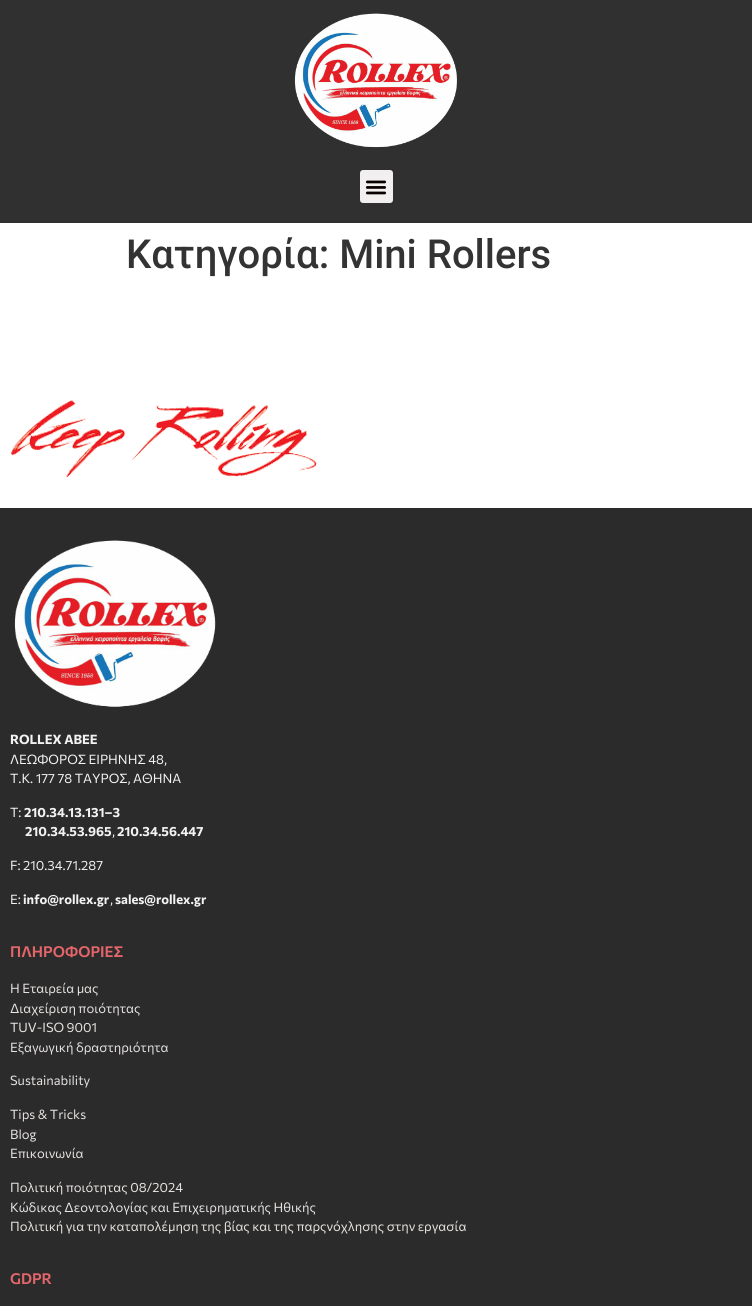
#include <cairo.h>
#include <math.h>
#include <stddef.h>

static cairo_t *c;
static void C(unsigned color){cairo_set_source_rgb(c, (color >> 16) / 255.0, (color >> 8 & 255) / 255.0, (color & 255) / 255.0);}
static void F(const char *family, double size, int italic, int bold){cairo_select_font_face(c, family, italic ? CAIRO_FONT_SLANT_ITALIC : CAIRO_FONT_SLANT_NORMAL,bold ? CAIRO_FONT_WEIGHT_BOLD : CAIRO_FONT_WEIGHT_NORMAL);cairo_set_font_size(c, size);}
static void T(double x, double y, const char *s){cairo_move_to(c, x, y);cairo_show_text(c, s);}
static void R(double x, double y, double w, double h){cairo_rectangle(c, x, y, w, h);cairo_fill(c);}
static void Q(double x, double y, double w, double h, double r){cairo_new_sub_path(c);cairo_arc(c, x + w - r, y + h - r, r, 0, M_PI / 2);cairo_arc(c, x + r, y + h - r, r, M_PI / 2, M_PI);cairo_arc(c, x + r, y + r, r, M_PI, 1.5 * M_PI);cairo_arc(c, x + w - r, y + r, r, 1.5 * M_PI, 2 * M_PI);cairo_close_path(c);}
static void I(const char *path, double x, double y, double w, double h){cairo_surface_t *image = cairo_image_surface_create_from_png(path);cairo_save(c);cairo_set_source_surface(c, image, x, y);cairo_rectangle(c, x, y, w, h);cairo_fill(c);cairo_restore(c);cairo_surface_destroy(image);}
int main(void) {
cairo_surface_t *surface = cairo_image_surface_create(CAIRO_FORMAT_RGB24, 752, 1306);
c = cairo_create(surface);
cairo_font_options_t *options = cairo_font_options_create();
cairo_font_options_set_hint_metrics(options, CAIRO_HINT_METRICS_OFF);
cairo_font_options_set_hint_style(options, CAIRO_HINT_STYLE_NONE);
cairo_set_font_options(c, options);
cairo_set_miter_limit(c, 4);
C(0xffffff);
cairo_paint(c);
C(0x313030);
R(0,0,752,223);
I("1.png",294,13,163,135);
C(0xf1efef);
Q(360,170,33,33,3);
cairo_fill(c);
I("2.png",365,180,22,15);
F("Roboto Medium",40,0,0);
C(0x333333);
T(126,268,"Κατηγορία: Mini Rollers");
I("3.png",10,400,307,78);
C(0x2b2b2b);
R(0,508,752,798);
I("4.png",14,540,202,167);
F("Commissioner",13,0,1);
C(0xf2f2f2);
T(10,744,"ROLLEX ABEE");
F("Commissioner",13,0,0);
T(10,764,"ΛΕΩΦΟΡΟΣ ΕΙΡΗΝΗΣ 48,");
T(10,783,"Τ.Κ. 177 78 ΤΑΥΡΟΣ, ΑΘΗΝΑ");
T(10,817,"Τ:");
F("Commissioner",13,0,1);
T(24,817,"210.34.13.131–3");
T(25,836,"210.34.53.965");
F("Commissioner",13,0,0);
T(112,836,",");
F("Commissioner",13,0,1);
T(117,836,"210.34.56.447");
F("Commissioner",13,0,0);
T(10,870,"F: 210.34.71.287");
T(10,904,"E:");
F("Commissioner",13,0,1);
T(23,904,"info@rollex.gr");
F("Commissioner",13,0,0);
T(110,904,",");
F("Commissioner",13,0,1);
T(115,904,"sales@rollex.gr");
F("Commissioner SemiBold",15,0,0);
C(0xe4666b);
T(10,957,"ΠΛΗΡΟΦΟΡΙΕΣ");
F("Commissioner",13,0,0);
C(0xe6e3e1);
T(10,993,"Η Εταιρεία μας");
T(10,1013,"Διαχείριση ποιότητας");
T(10,1032,"TUV-ISO 9001");
T(10,1052,"Εξαγωγική δραστηριότητα");
T(10,1085,"Sustainability");
T(10,1119,"Tips & Tricks");
T(10,1139,"Blog");
T(10,1158,"Επικοινωνία");
T(10,1192,"Πολιτική ποιότητας 08/2024");
T(10,1212,"Κώδικας Δεοντολογίας και Επιχειρηματικής Ηθικής");
T(10,1231,"Πολιτική για την καταπολέμηση της βίας και της παρςνόχλησης στην εργασία");
F("Commissioner SemiBold",15,0,0);
C(0xe4666b);
T(10,1284,"GDPR");
cairo_surface_write_to_png(surface, "o.png");
cairo_font_options_destroy(options);
cairo_destroy(c);
cairo_surface_destroy(surface);
return 0;
}
